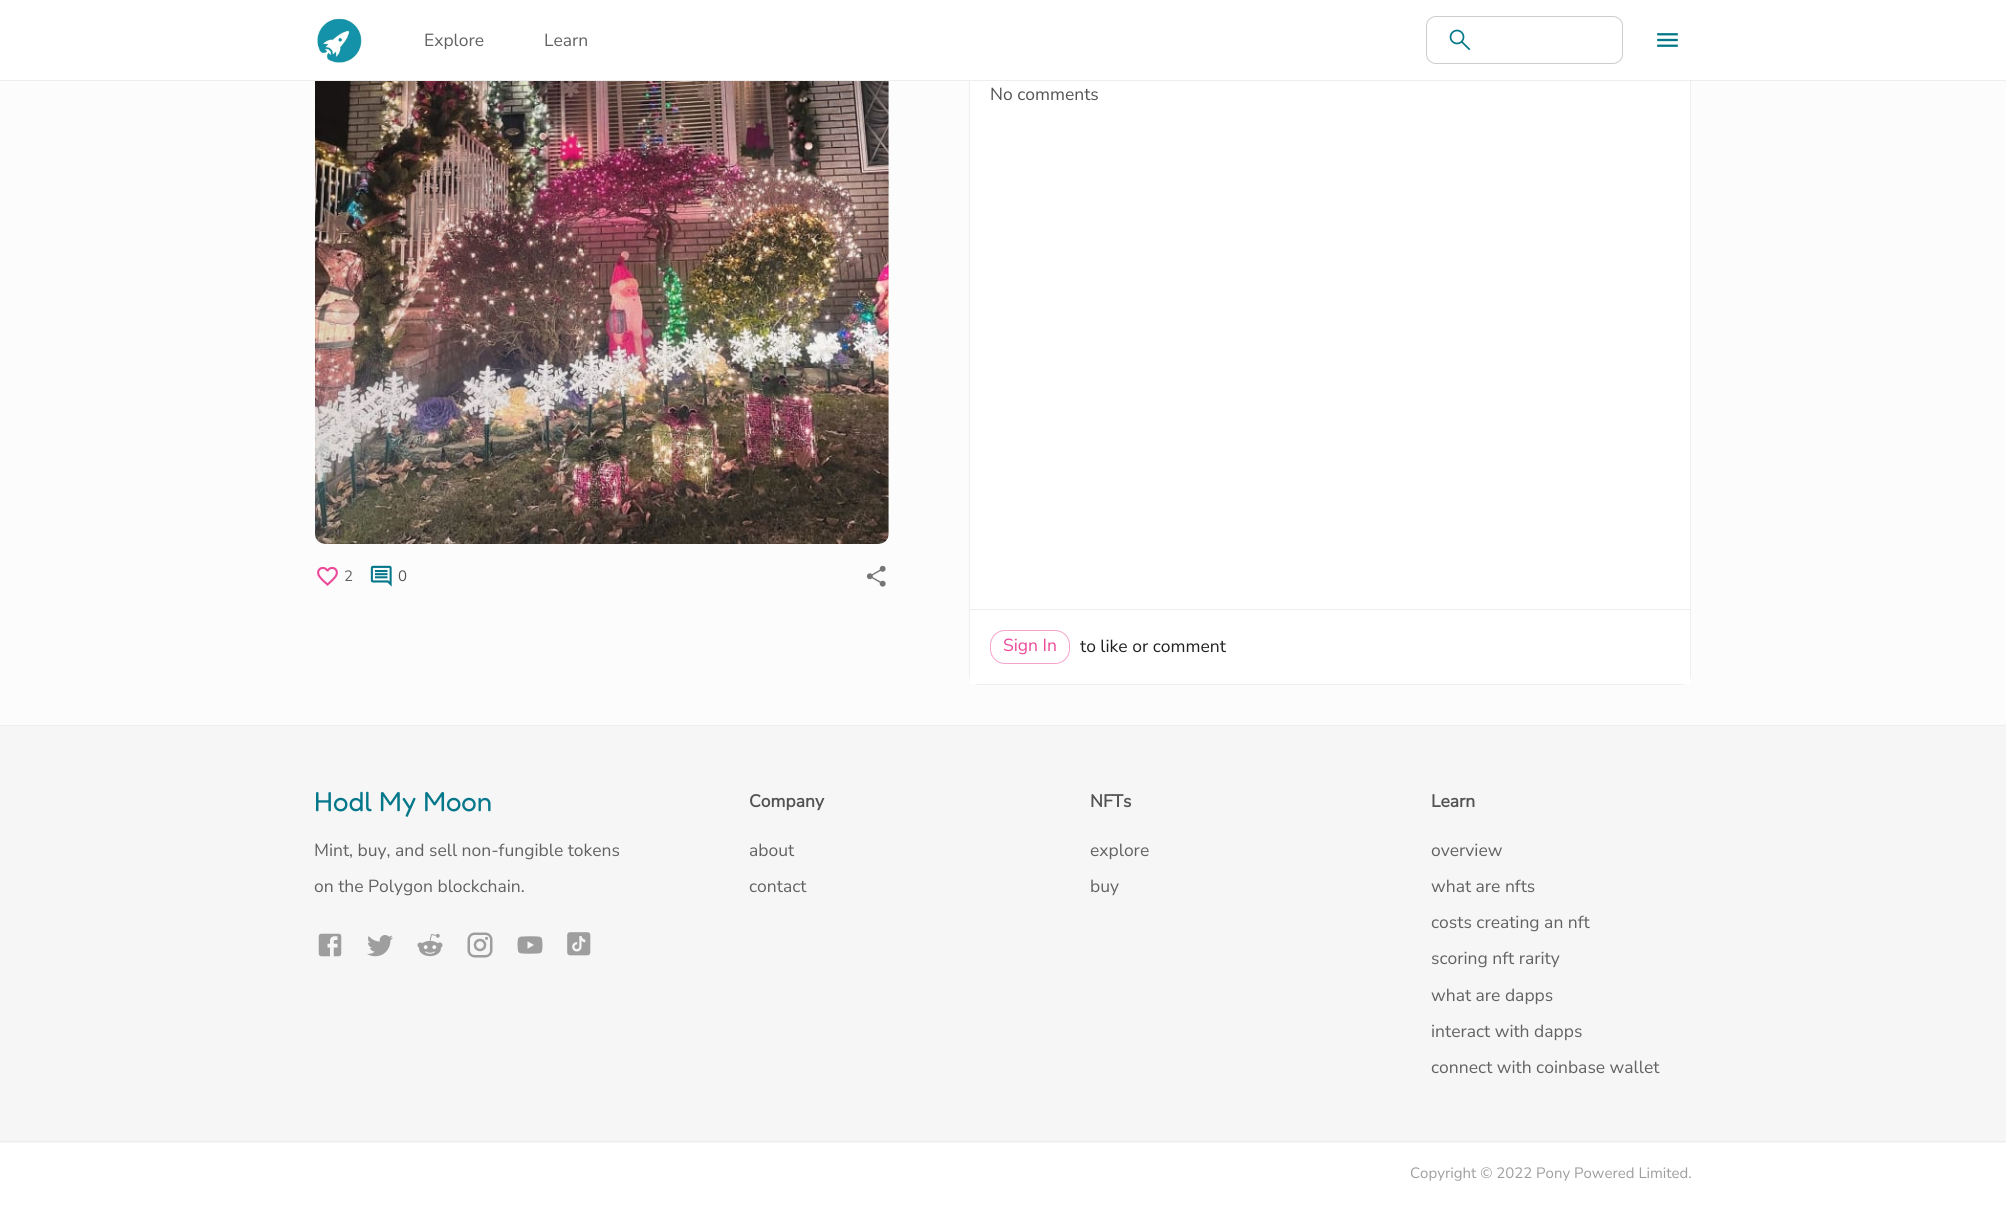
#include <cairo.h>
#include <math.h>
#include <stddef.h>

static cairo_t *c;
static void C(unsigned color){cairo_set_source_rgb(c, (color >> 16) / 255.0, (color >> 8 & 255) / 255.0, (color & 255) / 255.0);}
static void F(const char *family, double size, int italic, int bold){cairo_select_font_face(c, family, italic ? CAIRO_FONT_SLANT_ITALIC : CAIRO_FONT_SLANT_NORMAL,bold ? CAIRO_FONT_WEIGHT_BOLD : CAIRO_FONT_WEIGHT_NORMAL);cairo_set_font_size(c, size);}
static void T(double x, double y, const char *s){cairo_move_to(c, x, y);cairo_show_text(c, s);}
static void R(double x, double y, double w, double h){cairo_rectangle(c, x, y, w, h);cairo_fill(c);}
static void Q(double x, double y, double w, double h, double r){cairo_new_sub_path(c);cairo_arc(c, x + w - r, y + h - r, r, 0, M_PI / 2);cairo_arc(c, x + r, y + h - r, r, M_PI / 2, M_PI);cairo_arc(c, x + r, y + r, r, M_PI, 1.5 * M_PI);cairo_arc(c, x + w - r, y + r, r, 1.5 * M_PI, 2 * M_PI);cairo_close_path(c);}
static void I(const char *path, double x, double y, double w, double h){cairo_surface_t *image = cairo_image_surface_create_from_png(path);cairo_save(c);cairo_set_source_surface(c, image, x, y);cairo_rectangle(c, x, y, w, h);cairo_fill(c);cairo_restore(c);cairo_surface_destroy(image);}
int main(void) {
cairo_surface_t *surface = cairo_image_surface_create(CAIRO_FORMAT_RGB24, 2006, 1205);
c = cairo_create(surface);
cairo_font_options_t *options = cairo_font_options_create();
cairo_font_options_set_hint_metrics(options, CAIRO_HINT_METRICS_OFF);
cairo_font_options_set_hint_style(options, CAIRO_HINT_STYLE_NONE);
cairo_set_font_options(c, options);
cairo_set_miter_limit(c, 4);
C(0xffffff);
cairo_paint(c);
C(0xfcfcfc);
R(0,81,2006,644);
Q(969.5,1.5,721,683,9.5);
C(0xeeeeee);
cairo_set_line_width(c,1);
cairo_stroke(c);
C(0xffffff);
R(969,1,722,79);
C(0xeeeeee);
R(0,80,2006,1);
I("1.png",317,18,45,45);
F("Nunito Sans",17.5,0,0);
C(0x626262);
T(424,46,"Explore");
T(544,46,"Learn");
I("2.png",1449,29,22,22);
Q(1426.5,16.5,196,47,9.5);
C(0xcccccc);
cairo_stroke(c);
I("3.png",1657,33,21,14);
I("4.png",315,81,574,463);
I("5.png",317,566,21,20);
F("Nunito Sans",15,0,0);
C(0x626262);
T(344,581,"2");
I("6.png",370,565,22,22);
C(0x535353);
T(398,581,"0");
I("7.png",866,565,20,22);
C(0xffffff);
R(970,81,720,603);
F("Nunito Sans",17.5,0,0);
C(0x535353);
T(990,100,"No comments");
C(0xeeeeee);
R(970,609,720,1);
Q(990.5,630.5,79,33,14.5);
C(0xf6a4cc);
cairo_stroke(c);
C(0xec4899);
T(1003,651,"Sign In");
C(0x212121);
T(1080,652,"to like or comment");
C(0xf6f6f6);
R(0,726,2006,417);
C(0xeeeeee);
R(0,725,2006,1);
R(0,1141,2006,1);
F("Fredoka Light",27.5,0,0);
C(0x05778a);
T(314,811,"Hodl My Moon");
F("Nunito Sans",17.5,0,0);
C(0x626262);
T(314,856,"Mint, buy, and sell non-fungible tokens");
T(314,892,"on the Polygon blockchain.");
I("8.png",318,933,24,24);
I("9.png",367,935,26,22);
I("10.png",417,933,26,24);
I("11.png",467,932,26,26);
I("12.png",517,936,26,18);
I("13.png",567,932,24,24);
F("Nunito Sans",17.5,0,1);
C(0x535353);
T(749,807,"Company");
F("Nunito Sans",17.5,0,0);
C(0x626262);
T(749,856,"about");
T(749,892,"contact");
F("Nunito Sans",17.5,0,1);
C(0x535353);
T(1090,807,"NFTs");
F("Nunito Sans",17.5,0,0);
C(0x626262);
T(1090,856,"explore");
T(1090,892,"buy");
F("Nunito Sans",17.5,0,1);
C(0x535353);
T(1431,807,"Learn");
F("Nunito Sans",17.5,0,0);
C(0x626262);
T(1431,856,"overview");
T(1431,892,"what are nfts");
T(1431,928,"costs creating an nft");
T(1431,964,"scoring nft rarity");
T(1431,1001,"what are dapps");
T(1431,1037,"interact with dapps");
T(1431,1073,"connect with coinbase wallet");
F("Nunito Sans",15,0,0);
C(0x9e9e9e);
T(1410,1178,"Copyright © 2022 Pony Powered Limited.");
cairo_surface_write_to_png(surface, "o.png");
cairo_font_options_destroy(options);
cairo_destroy(c);
cairo_surface_destroy(surface);
return 0;
}
